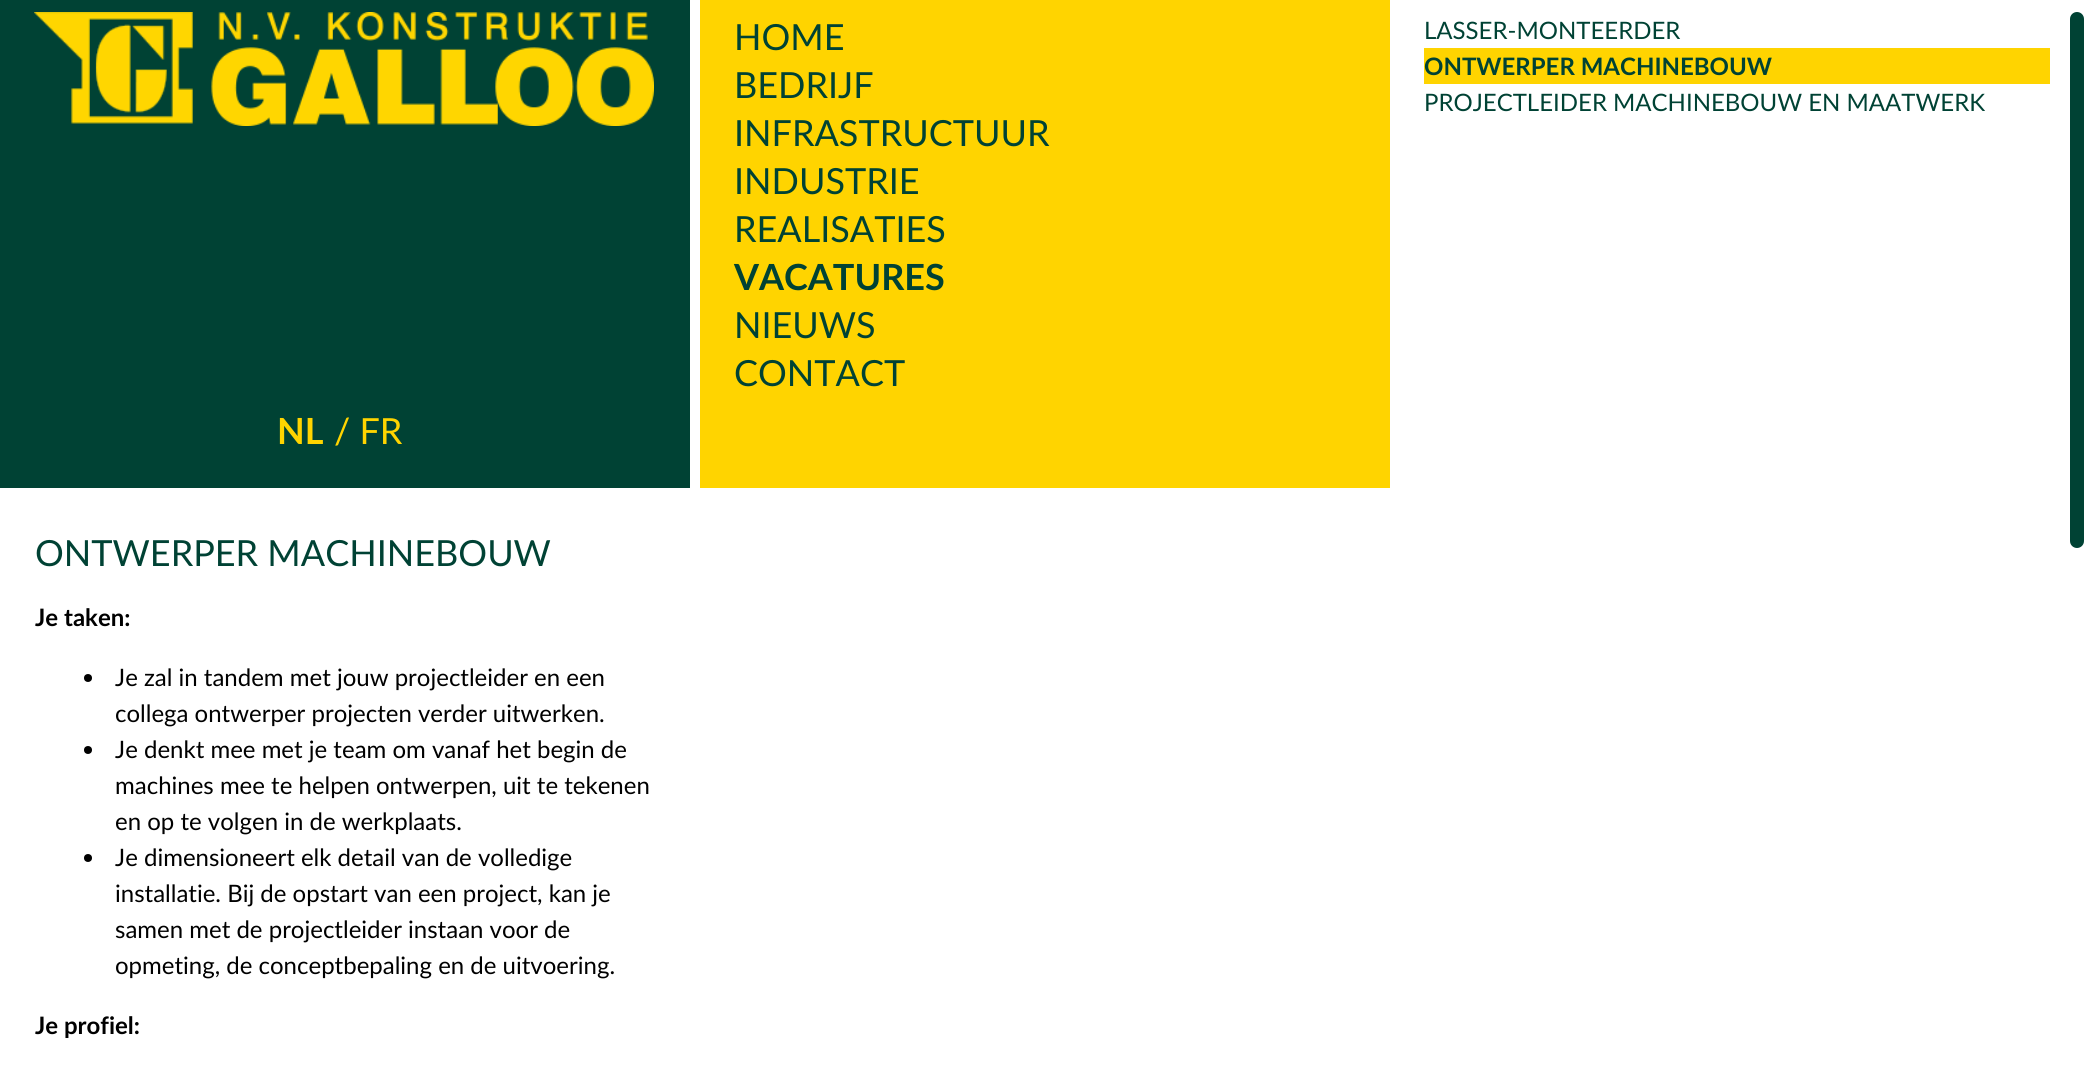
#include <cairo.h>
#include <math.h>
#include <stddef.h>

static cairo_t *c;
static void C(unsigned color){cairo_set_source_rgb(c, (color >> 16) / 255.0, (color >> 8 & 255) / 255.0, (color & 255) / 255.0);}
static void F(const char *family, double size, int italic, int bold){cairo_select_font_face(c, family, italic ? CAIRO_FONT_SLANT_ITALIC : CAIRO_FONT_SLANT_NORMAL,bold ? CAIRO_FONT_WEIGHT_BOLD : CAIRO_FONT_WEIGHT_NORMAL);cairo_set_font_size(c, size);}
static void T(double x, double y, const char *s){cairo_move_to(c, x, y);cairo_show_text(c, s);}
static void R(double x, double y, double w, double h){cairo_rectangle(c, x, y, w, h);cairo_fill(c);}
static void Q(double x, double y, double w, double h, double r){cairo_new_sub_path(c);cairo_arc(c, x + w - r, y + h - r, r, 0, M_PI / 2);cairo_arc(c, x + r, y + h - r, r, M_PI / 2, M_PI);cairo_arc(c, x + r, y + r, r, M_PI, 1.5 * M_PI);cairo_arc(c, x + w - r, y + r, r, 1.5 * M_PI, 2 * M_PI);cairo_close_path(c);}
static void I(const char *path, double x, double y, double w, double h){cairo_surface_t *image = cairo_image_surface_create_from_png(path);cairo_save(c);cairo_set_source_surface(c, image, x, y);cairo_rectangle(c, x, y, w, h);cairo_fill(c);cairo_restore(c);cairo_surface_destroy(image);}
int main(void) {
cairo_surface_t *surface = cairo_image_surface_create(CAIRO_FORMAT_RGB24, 2084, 1069);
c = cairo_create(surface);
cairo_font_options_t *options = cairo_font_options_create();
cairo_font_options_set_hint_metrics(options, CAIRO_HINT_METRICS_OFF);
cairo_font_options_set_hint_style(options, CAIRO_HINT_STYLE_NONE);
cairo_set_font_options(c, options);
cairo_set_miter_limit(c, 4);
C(0xffffff);
cairo_paint(c);
C(0xffd400);
R(700,0,690,488);
F("Lato",36,0,0);
C(0x004234);
T(734,50,"HOME");
T(734,98,"BEDRIJF");
T(734,146,"INFRASTRUCTUUR");
T(734,194,"INDUSTRIE");
T(734,242,"REALISATIES");
F("Lato",36,0,1);
T(734,290,"VACATURES");
F("Lato",36,0,0);
T(734,338,"NIEUWS");
T(734,386,"CONTACT");
F("Lato",24,0,0);
T(1424,39,"LASSER-MONTEERDER");
C(0xffd400);
R(1424,48,626,36);
F("Lato",24,0,1);
C(0x004234);
T(1424,75,"ONTWERPER MACHINEBOUW");
F("Lato",24,0,0);
T(1424,111,"PROJECTLEIDER MACHINEBOUW EN MAATWERK");
R(0,0,690,488);
I("1.png",34,12,620,114);
F("Lato",36,0,1);
C(0xffd400);
T(277,444,"NL");
F("Lato",36,0,0);
T(334,444,"/ FR");
C(0x004234);
Q(2070,12,14,536,7);
cairo_fill(c);
T(35,566,"ONTWERPER MACHINEBOUW");
F("Lato",24,0,1);
C(0x000000);
T(35,626,"Je taken:");
cairo_new_path(c);
cairo_arc(c,88,678,4,0,2 * M_PI);
cairo_fill(c);
F("Lato",24,0,0);
T(115,686,"Je zal in tandem met jouw projectleider en een");
T(115,722,"collega ontwerper projecten verder uitwerken.");
cairo_new_path(c);
cairo_arc(c,88,750,4,0,2 * M_PI);
cairo_fill(c);
T(115,758,"Je denkt mee met je team om vanaf het begin de");
T(115,794,"machines mee te helpen ontwerpen, uit te tekenen");
T(115,830,"en op te volgen in de werkplaats.");
cairo_new_path(c);
cairo_arc(c,88,858,4,0,2 * M_PI);
cairo_fill(c);
T(115,866,"Je dimensioneert elk detail van de volledige");
T(115,902,"installatie. Bij de opstart van een project, kan je");
T(115,938,"samen met de projectleider instaan voor de");
T(115,974,"opmeting, de conceptbepaling en de uitvoering.");
F("Lato",24,0,1);
T(35,1034,"Je profiel:");
cairo_surface_write_to_png(surface, "o.png");
cairo_font_options_destroy(options);
cairo_destroy(c);
cairo_surface_destroy(surface);
return 0;
}
